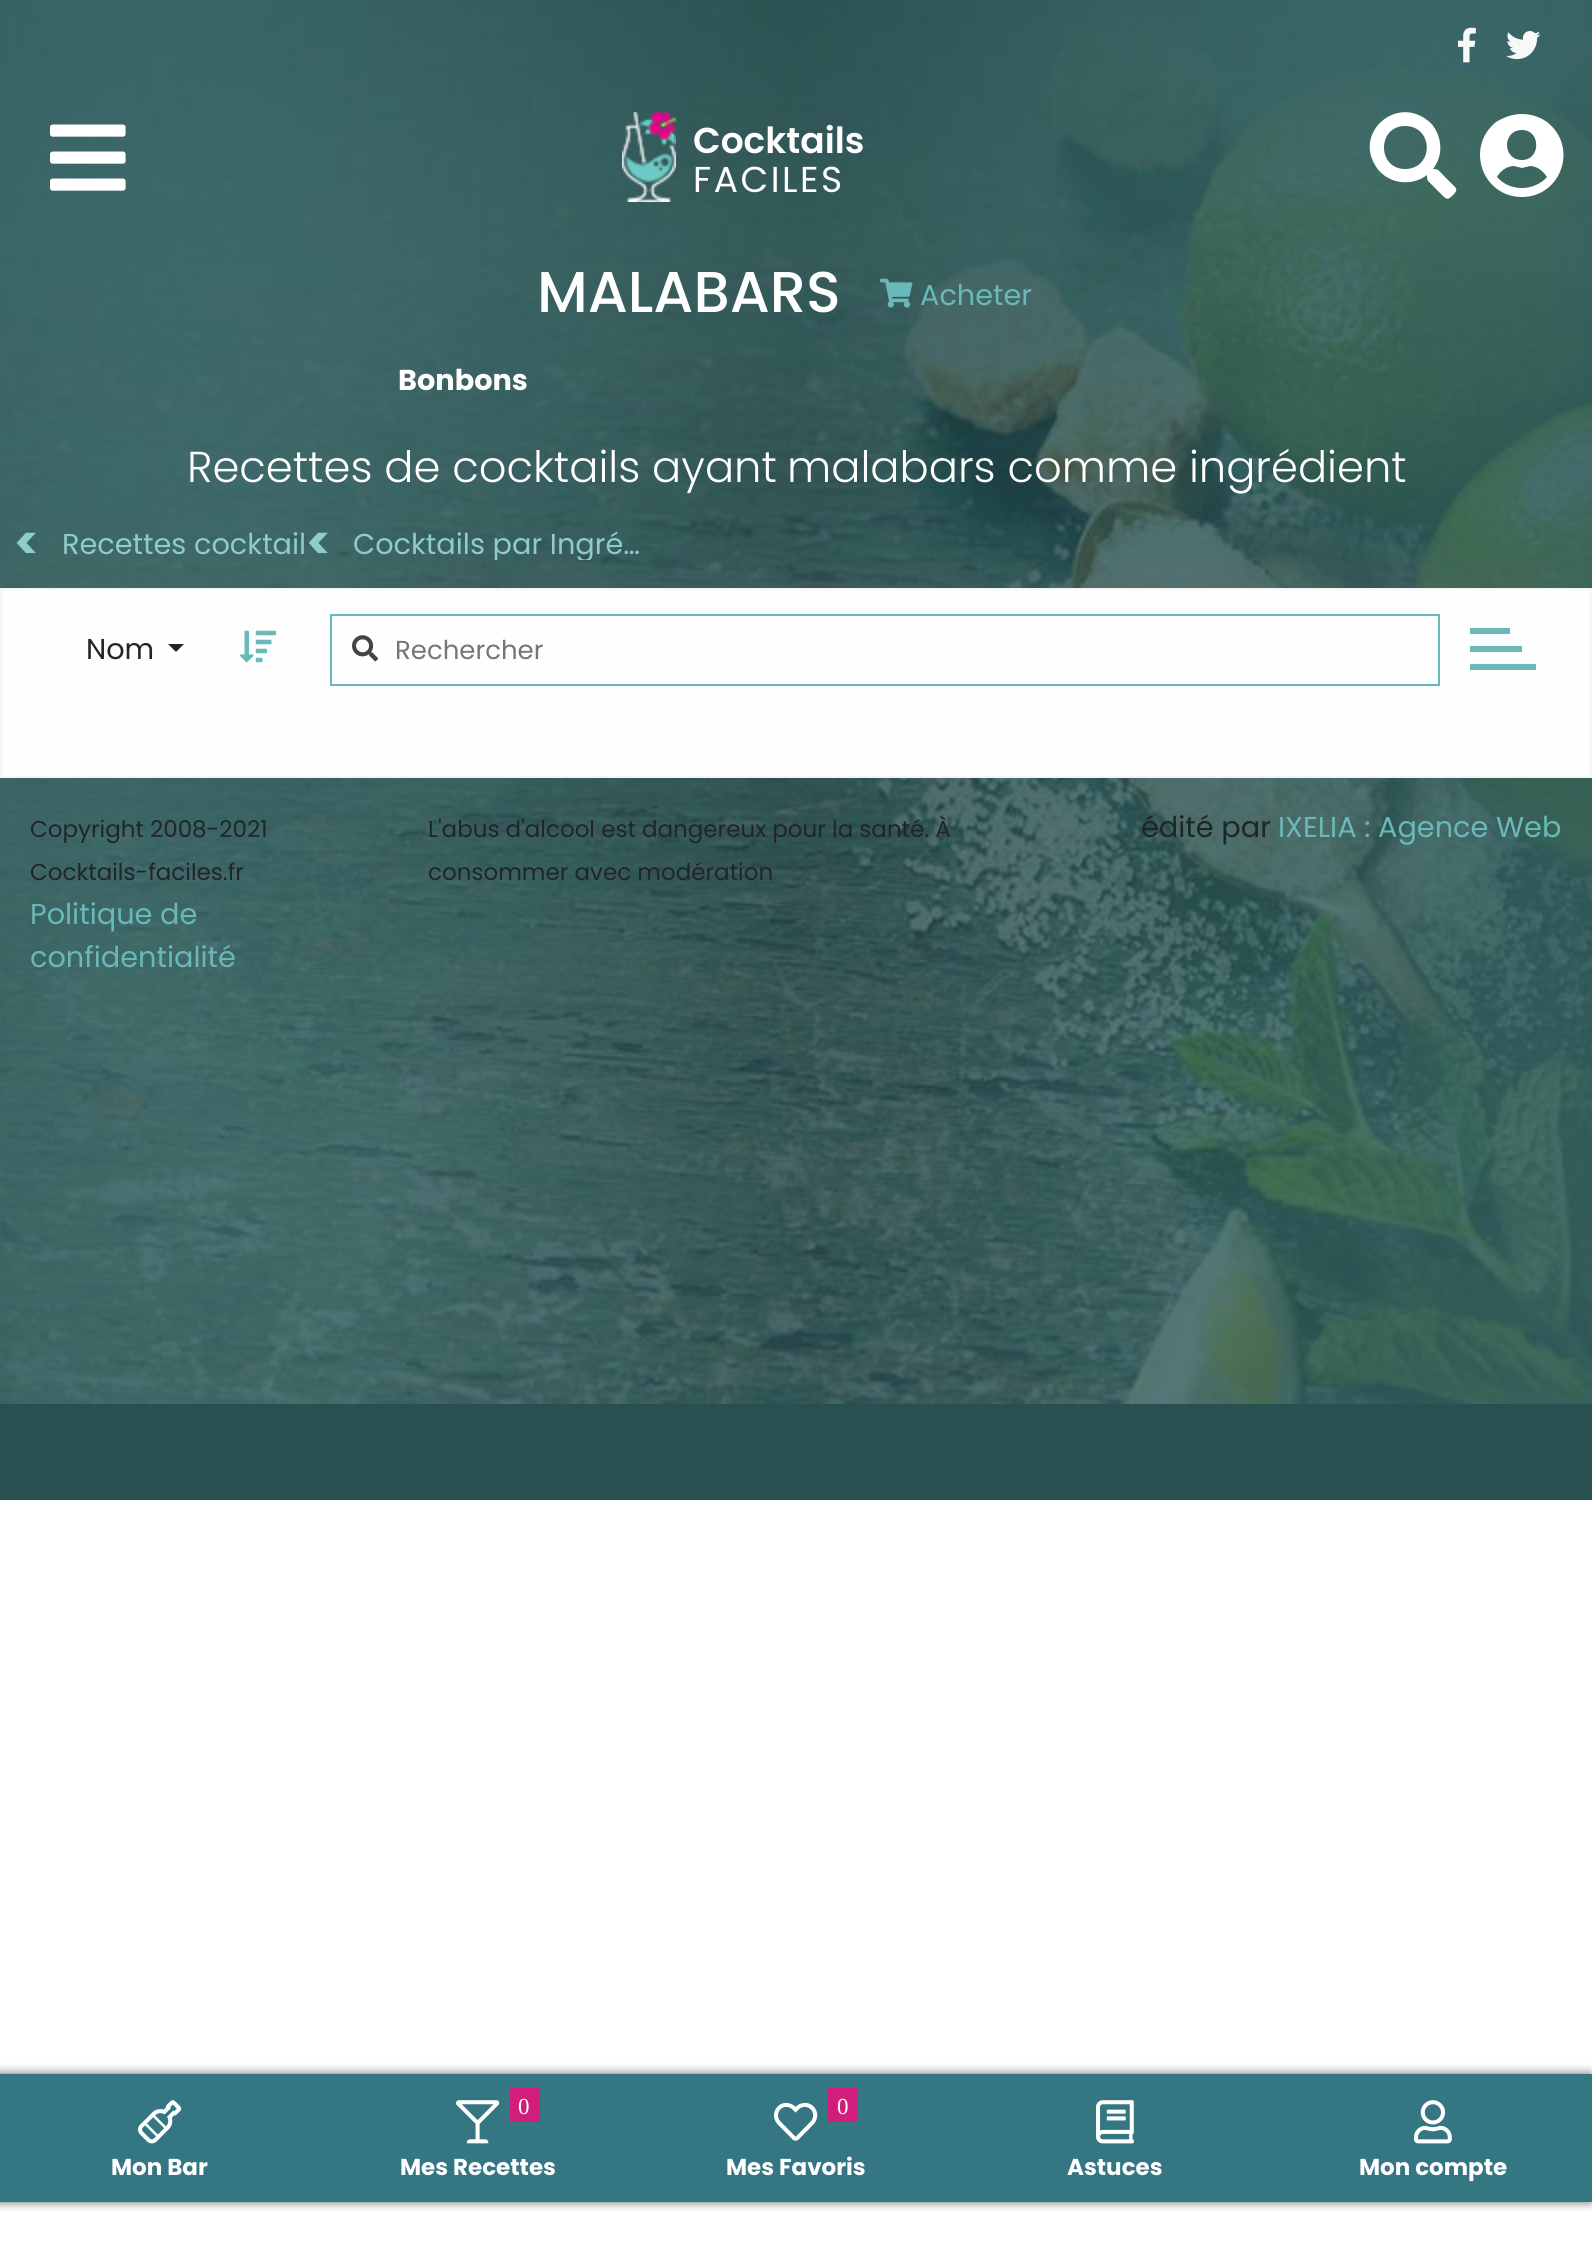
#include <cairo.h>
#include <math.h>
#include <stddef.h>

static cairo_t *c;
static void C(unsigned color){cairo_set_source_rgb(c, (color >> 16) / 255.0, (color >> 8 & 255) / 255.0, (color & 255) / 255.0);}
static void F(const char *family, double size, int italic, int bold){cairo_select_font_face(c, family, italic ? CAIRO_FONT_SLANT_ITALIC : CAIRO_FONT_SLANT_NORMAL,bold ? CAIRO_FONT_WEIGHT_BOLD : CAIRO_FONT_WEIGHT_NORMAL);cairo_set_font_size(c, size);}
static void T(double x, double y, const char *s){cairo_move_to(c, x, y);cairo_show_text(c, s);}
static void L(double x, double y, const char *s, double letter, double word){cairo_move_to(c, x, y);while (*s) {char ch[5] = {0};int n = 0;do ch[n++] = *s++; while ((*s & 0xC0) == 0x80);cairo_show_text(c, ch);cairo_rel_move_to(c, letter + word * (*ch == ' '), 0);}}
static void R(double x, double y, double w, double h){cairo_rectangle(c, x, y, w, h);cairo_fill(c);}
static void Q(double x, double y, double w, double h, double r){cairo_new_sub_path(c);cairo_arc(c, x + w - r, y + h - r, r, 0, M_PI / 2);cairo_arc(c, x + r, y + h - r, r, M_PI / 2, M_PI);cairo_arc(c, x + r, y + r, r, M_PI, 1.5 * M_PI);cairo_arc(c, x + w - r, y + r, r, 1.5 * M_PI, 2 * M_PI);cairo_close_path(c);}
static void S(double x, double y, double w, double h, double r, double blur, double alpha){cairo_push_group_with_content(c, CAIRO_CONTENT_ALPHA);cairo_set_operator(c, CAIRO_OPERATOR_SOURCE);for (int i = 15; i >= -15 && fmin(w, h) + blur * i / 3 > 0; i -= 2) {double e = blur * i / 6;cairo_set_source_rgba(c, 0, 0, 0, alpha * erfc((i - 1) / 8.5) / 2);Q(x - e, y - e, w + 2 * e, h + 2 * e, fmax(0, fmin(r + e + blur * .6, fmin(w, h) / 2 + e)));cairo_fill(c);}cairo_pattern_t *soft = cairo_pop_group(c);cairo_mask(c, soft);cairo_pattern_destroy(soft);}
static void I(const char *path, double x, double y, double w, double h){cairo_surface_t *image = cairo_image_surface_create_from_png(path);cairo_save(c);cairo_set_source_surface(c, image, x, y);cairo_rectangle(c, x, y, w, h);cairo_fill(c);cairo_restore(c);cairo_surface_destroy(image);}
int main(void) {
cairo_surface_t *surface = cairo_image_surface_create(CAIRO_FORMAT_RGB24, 1592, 2265);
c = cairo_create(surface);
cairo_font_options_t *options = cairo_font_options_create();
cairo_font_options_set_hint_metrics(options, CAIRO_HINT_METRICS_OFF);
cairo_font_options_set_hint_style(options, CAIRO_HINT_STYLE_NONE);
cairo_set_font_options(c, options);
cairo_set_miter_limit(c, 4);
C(0xffffff);
cairo_paint(c);
I("5.png",0,0,1592,1404);
I("1.png",1458,27,18,36);
I("2.png",1506,31,35,29);
I("3.png",50,124,76,67);
I("4.png",622,112,54,90);
F("Poppins SemiBold",36,0,0);
C(0xffffff);
T(693,153,"Cocktails");
F("Poppins",36,0,0);
L(693,192,"FACILES",2.5,0);
cairo_new_path(c);
cairo_move_to(c,1455,187);
cairo_line_to(c,1444,176);
cairo_curve_to(c,1439,171,1439,169,1433,169);
cairo_curve_to(c,1440,160,1442,149,1439,138);
cairo_curve_to(c,1437,131,1433,124,1427,120);
cairo_curve_to(c,1396,96,1355,132,1375,165);
cairo_curve_to(c,1385,183,1410,188,1427,175);
cairo_curve_to(c,1427,180,1427,180,1431,184);
cairo_line_to(c,1442,195);
cairo_curve_to(c,1447,200,1448,200,1453,195);
cairo_curve_to(c,1455,193,1458,190,1455,187);
cairo_close_path(c);
cairo_move_to(c,1405,169);
cairo_curve_to(c,1377,169,1377,126,1405,126);
cairo_curve_to(c,1434,126,1434,169,1405,169);
cairo_close_path(c);
cairo_fill(c);
cairo_new_path(c);
cairo_move_to(c,1522,114);
cairo_curve_to(c,1513,114,1504,117,1496,122);
cairo_curve_to(c,1465,147,1482,197,1522,197);
cairo_curve_to(c,1561,197,1579,147,1547,122);
cairo_curve_to(c,1540,117,1531,114,1522,114);
cairo_close_path(c);
cairo_move_to(c,1522,130);
cairo_curve_to(c,1541,130,1541,160,1522,160);
cairo_curve_to(c,1502,160,1502,130,1522,130);
cairo_close_path(c);
cairo_move_to(c,1522,188);
cairo_curve_to(c,1512,188,1503,184,1497,177);
cairo_curve_to(c,1500,171,1507,166,1514,166);
cairo_line_to(c,1522,168);
cairo_line_to(c,1530,166);
cairo_curve_to(c,1537,166,1543,171,1547,177);
cairo_curve_to(c,1541,184,1531,188,1522,188);
cairo_close_path(c);
cairo_fill(c);
C(0x295050);
R(0,1404,1592,96);
F("Poppins Medium",57.5,0,0);
C(0xffffff);
T(537,312,"MALABARS");
I("6.png",880,278,33,30);
F("Poppins",28.75,0,0);
C(0x69b9b9);
T(920,305,"Acheter");
F("Poppins",28.75,0,1);
C(0xffffff);
T(398,390,"Bonbons");
F("Poppins Light",43.25,0,0);
T(187,482,"Recettes de cocktails ayant");
T(787,482,"malabars comme ingrédient");
F("Poppins",46,0,1);
C(0x8fcccc);
T(14,559,"<");
F("Poppins",28.75,0,0);
T(62,554,"Recettes cocktail");
F("Poppins",46,0,1);
T(306,559,"<");
cairo_save(c);
cairo_rectangle(c,354,530,300,30);
cairo_clip(c);
F("Poppins",28.75,0,0);
T(353,554,"Cocktails par Ingré…");
cairo_restore(c);
C(0x656565);
S(50,618,1492,90,0,30,1);
C(0xfffefe);
cairo_rectangle(c,1,589,1590,188);
cairo_fill_preserve(c);
C(0xf5f5f5);
cairo_stroke(c);
F("Poppins",28.75,0,0);
C(0x212529);
T(86,659,"Nom");
cairo_new_path(c);
cairo_move_to(c,168,644);
cairo_line_to(c,184,644);
cairo_line_to(c,176,652);
cairo_close_path(c);
cairo_fill(c);
I("7.png",240,630,36,33);
cairo_rectangle(c,331,615,1108,70);
C(0x69b9b9);
cairo_stroke(c);
I("8.png",352,635,26,27);
F("Poppins",26,0,0);
C(0x757575);
T(395,659,"Rechercher");
C(0x69b9b9);
R(1470,646,52,6);
R(1470,628,40,6);
R(1470,664,66,6);
F("Poppins",23,0,0);
C(0x212529);
T(30,837,"Copyright 2008-2021");
T(30,880,"Cocktails-faciles.fr");
F("Poppins",28.75,0,0);
C(0x69b9b9);
T(30,924,"Politique de");
T(30,967,"confidentialité");
F("Poppins",23,0,0);
C(0x212529);
T(428,837,"L'abus d'alcool est dangereux pour la santé. À");
T(428,880,"consommer avec modération");
F("Poppins",28.75,0,0);
T(1141,837,"édité par");
C(0x69b9b9);
T(1278,837,"IXELIA : Agence Web");
C(0x000000);
S(-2,2074,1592,128,0,5,.62);
C(0x347682);
R(0,2074,1592,128);
I("9.png",138,2100,44,44);
F("Poppins",23,0,1);
C(0xffffff);
T(111,2175,"Mon Bar");
I("10.png",456,2100,44,44);
C(0xd11e7a);
R(510,2088,30,34);
F("Liberation Serif",23,0,0);
C(0xffffff);
T(518,2114,"0");
F("Poppins",23,0,1);
T(400,2175,"Mes Recettes");
I("11.png",774,2102,44,39);
C(0xd11e7a);
R(828,2088,30,34);
F("Liberation Serif",23,0,0);
C(0xffffff);
T(837,2114,"0");
F("Poppins",23,0,1);
T(726,2175,"Mes Favoris");
I("12.png",1096,2100,38,44);
T(1067,2175,"Astuces");
I("13.png",1414,2100,38,44);
T(1359,2175,"Mon compte");
cairo_surface_write_to_png(surface, "o.png");
cairo_font_options_destroy(options);
cairo_destroy(c);
cairo_surface_destroy(surface);
return 0;
}
